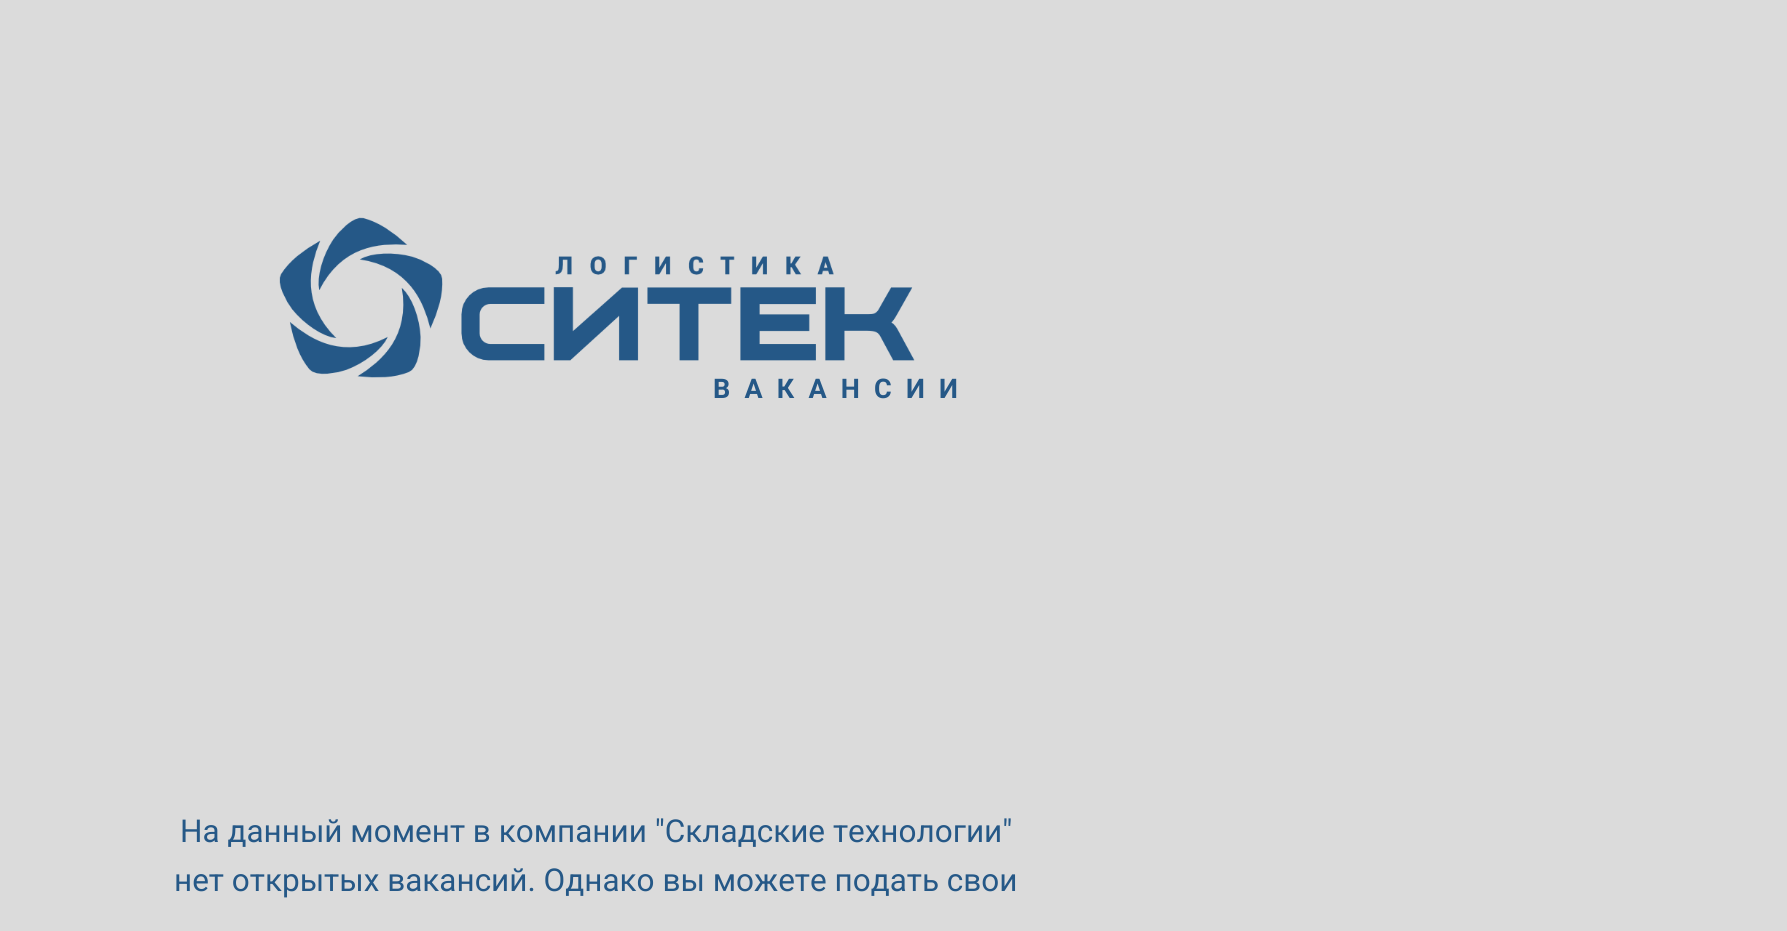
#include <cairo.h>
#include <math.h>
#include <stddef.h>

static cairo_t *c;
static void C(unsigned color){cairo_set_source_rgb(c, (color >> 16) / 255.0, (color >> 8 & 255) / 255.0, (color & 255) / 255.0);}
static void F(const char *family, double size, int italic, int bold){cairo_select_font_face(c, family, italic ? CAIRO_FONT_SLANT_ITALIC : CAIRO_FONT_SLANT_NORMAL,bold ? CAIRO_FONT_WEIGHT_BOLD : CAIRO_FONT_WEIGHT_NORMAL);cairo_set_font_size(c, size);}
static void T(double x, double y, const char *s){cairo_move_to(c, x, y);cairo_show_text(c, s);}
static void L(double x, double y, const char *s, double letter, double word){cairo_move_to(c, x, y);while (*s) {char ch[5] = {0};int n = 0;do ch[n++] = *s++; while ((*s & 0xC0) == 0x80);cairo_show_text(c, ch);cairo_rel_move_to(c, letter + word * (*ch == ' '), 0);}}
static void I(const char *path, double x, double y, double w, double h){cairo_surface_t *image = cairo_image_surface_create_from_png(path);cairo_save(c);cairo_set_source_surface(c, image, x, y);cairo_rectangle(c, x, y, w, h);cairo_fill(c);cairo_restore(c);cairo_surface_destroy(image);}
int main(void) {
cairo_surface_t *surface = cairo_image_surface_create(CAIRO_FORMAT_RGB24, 1787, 931);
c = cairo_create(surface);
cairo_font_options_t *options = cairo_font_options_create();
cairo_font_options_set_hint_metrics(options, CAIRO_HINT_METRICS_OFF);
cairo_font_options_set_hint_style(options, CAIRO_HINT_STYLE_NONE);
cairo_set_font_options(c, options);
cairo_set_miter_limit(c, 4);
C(0xdbdbdb);
cairo_paint(c);
I("1.png",279,217,636,161);
F("Roboto",27,0,1);
C(0x255887);
L(713,398,"В А К А Н С И И",3.75,0);
F("Roboto",31.5,0,0);
T(180,842,"На данный момент в компании \"Складские технологии\"");
T(174,891,"нет открытых вакансий. Однако вы можете подать свои");
cairo_surface_write_to_png(surface, "o.png");
cairo_font_options_destroy(options);
cairo_destroy(c);
cairo_surface_destroy(surface);
return 0;
}
